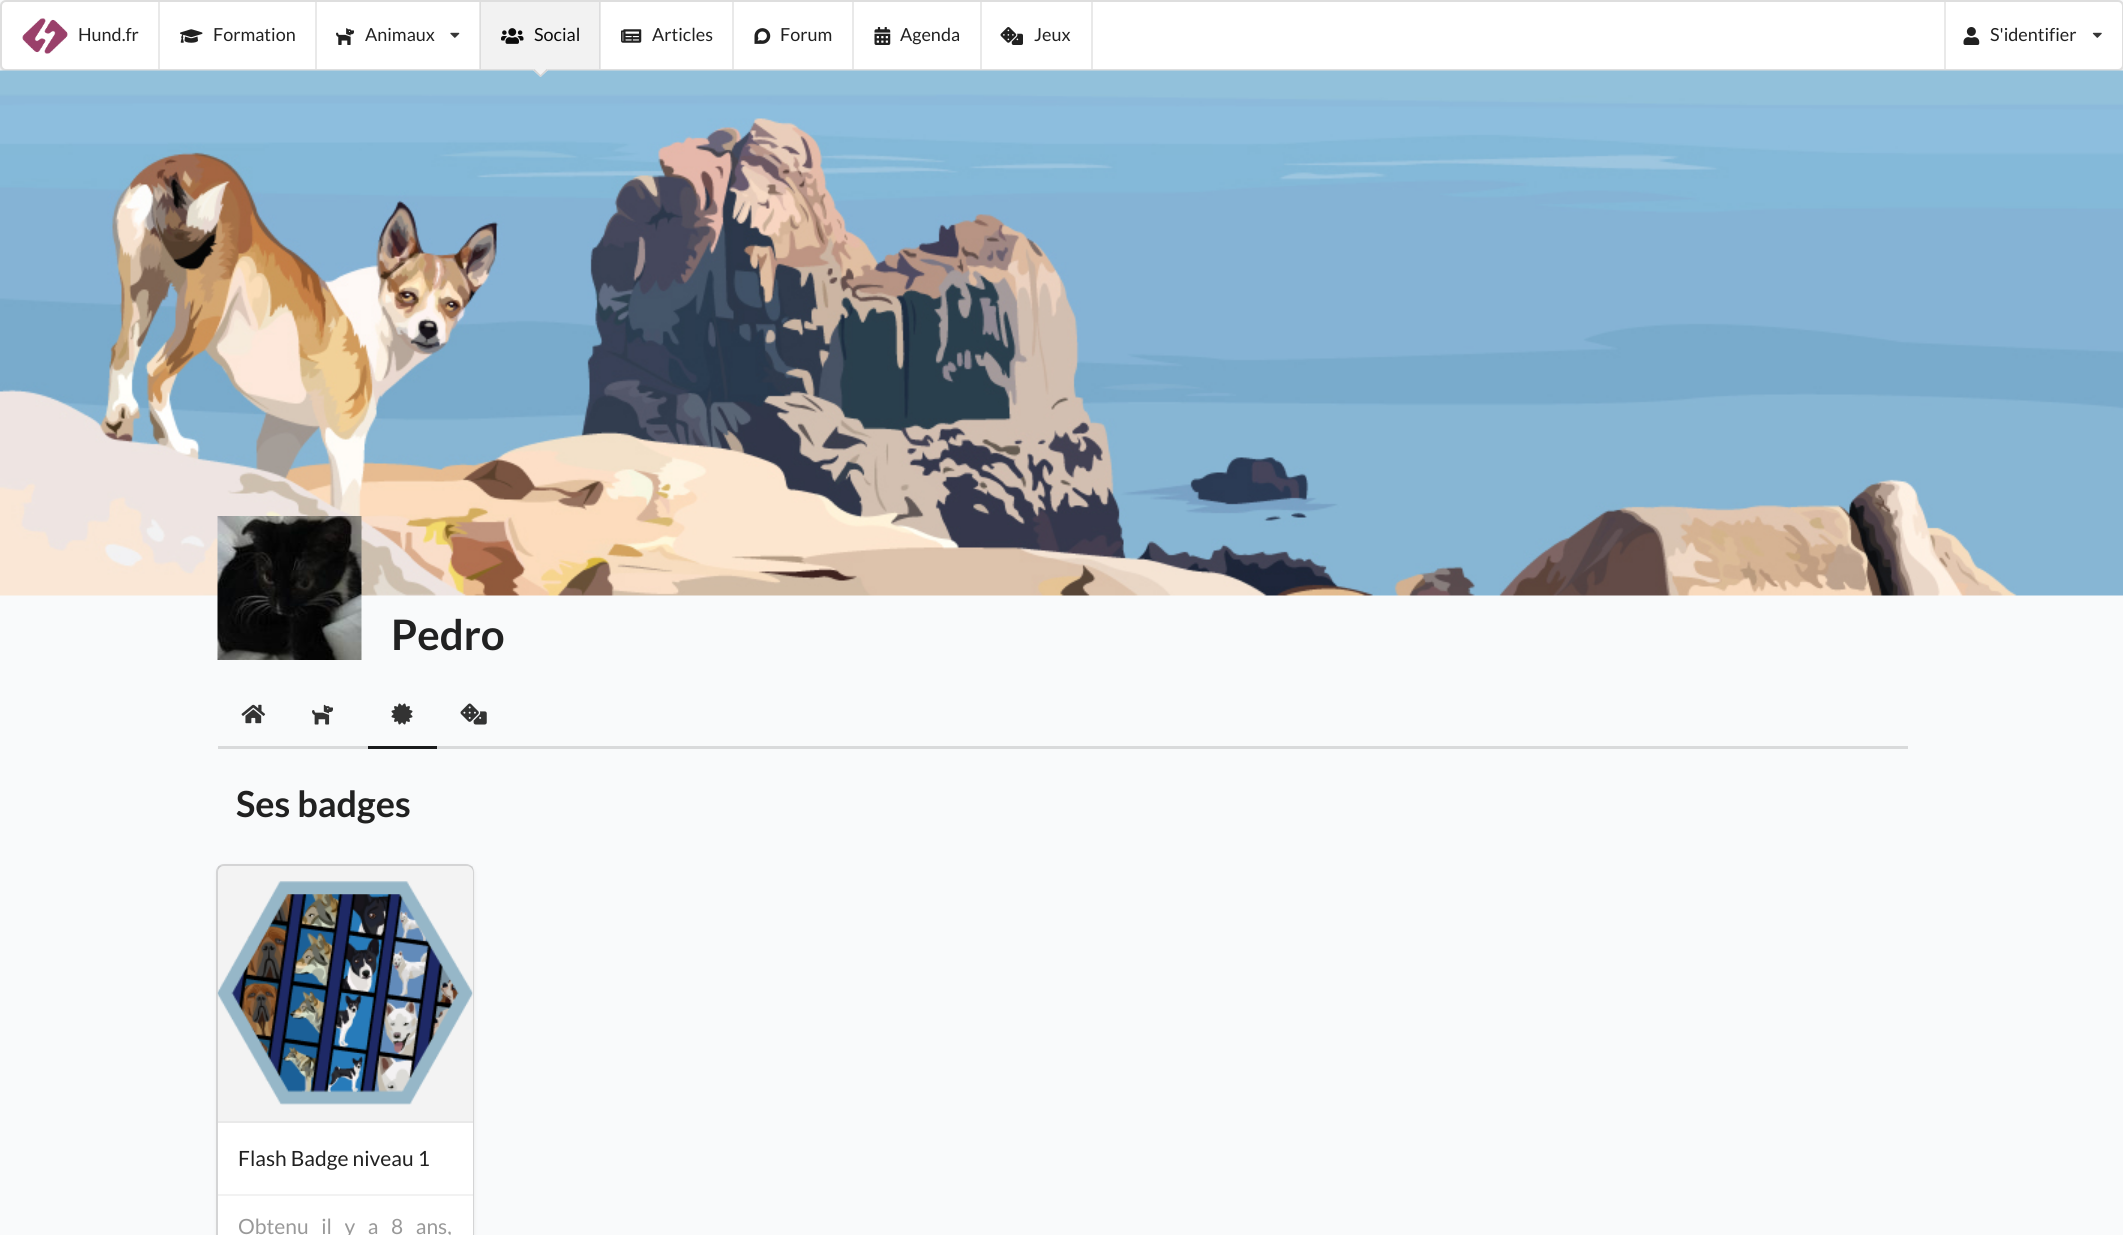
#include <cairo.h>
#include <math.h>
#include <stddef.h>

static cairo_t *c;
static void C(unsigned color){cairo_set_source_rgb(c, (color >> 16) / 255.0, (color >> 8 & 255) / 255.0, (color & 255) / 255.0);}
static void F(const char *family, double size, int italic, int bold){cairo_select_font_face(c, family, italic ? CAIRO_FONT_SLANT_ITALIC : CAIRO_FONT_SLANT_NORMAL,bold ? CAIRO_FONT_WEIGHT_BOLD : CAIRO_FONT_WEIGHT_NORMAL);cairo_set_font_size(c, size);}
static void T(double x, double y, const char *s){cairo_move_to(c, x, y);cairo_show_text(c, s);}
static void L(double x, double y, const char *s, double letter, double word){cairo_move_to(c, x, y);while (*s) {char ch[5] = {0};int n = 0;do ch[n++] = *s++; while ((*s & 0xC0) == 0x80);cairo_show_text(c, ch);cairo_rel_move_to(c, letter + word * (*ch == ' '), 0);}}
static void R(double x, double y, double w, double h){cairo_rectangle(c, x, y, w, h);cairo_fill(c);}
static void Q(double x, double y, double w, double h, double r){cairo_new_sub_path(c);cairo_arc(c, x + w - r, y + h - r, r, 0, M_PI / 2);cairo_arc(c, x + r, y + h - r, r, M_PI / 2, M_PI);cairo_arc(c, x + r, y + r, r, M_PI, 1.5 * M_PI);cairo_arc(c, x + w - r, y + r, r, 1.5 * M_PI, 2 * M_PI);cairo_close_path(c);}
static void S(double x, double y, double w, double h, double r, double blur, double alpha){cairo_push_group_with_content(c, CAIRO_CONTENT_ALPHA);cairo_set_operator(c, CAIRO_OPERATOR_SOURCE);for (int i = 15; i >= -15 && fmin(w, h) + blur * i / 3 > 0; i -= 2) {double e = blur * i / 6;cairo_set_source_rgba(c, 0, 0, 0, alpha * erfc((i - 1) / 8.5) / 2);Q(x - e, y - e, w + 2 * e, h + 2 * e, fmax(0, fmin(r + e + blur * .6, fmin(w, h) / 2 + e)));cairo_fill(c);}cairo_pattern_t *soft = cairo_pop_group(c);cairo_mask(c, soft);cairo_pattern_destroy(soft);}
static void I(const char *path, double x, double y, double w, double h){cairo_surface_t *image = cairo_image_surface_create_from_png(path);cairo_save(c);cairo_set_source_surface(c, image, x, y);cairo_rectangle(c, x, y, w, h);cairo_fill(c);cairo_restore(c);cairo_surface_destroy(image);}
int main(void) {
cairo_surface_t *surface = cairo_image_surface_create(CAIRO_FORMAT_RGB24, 2123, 1235);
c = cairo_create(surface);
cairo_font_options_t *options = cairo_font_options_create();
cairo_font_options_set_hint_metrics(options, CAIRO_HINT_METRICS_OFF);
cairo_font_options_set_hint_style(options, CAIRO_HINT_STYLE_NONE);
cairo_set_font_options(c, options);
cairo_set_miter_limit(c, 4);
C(0xf9fafb);
cairo_paint(c);
C(0x222426);
S(0,2,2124,70,6,1.5,.15);
C(0xffffff);
Q(0,0,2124,71,6);
cairo_fill(c);
C(0xe9e9e9);
R(600,2,1,67);
C(0xf2f2f2);
R(481,2,118,67);
C(0xddddde);
R(599,2,1,67);
Q(1,1,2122,69,5);
cairo_set_source_rgba(c,0.133,0.141,0.149,0.15);
cairo_stroke(c);
I("1.png",22,18,46,36);
F("Lato",18,0,0);
C(0x212121);
T(78,41,"Hund.fr");
C(0xe9e9e9);
R(158,2,2,67);
I("2.png",180,29,23,14);
C(0x212121);
T(213,41,"Formation");
C(0xe9e9e9);
R(315,2,2,67);
I("3.png",336,28,18,17);
C(0x212121);
T(365,41,"Animaux");
I("4.png",450,32,10,6);
C(0xe9e9e9);
R(479,2,1,67);
C(0xdddddd);
R(480,2,1,67);
I("5.png",501,28,23,16);
C(0x0c0c0c);
T(534,41,"Social");
I("12.png",0,70,2123,526);
C(0xf2f2f2);
cairo_new_path(c);
cairo_move_to(c,540.5,62.5);
cairo_line_to(c,548,70);
cairo_line_to(c,540.5,77);
cairo_line_to(c,533,70);
cairo_close_path(c);
cairo_fill(c);
C(0xd4d4d5);
cairo_new_path(c);
cairo_move_to(c,546.5,69);
cairo_line_to(c,548,70);
cairo_line_to(c,540.5,77);
cairo_line_to(c,539.5,76);
cairo_close_path(c);
cairo_fill(c);
cairo_new_path(c);
cairo_move_to(c,534.5,69);
cairo_line_to(c,541.5,76);
cairo_line_to(c,540.5,77);
cairo_line_to(c,533,70);
cairo_close_path(c);
cairo_fill(c);
I("6.png",621,29,21,14);
C(0x212121);
T(652,41,"Articles");
C(0xe9e9e9);
R(732,2,2,67);
I("7.png",754,28,17,16);
C(0x212121);
T(780,41,"Forum");
C(0xe9e9e9);
R(852,2,2,67);
I("8.png",874,27,17,18);
C(0x212121);
T(900,41,"Agenda");
C(0xe9e9e9);
R(980,2,2,67);
I("9.png",1000,27,23,18);
C(0x212121);
T(1034,41,"Jeux");
C(0xe9e9e9);
R(1091,2,2,67);
R(1944,2,2,67);
I("10.png",1963,27,17,18);
C(0x212121);
T(1990,41,"S'identifier");
I("11.png",2092,32,10,6);
I("13.png",217,516,145,144);
F("Lato",42,0,1);
T(391,650,"Pedro");
C(0xd9dadb);
R(218,746,1690,3);
I("14.png",241,704,25,20);
I("15.png",312,704,21,21);
C(0x1b1c1d);
R(368,746,69,3);
I("16.png",391,703,22,22);
I("17.png",460,703,27,22);
F("Lato",36,0,1);
C(0x212121);
T(236,817,"Ses badges");
Q(217,865,256,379,7);
C(0xd4d4d5);
cairo_stroke(c);
C(0xd4d4d5);
S(218,867,255,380,6,2,1);
C(0xffffff);
Q(218,866,255,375,6);
cairo_fill(c);
cairo_set_source_rgba(c,0,0,0,0.05);
R(218,866,255,255);
I("18.png",217,881,256,224);
C(0xe9e9e9);
R(218,1121,255,2);
F("Lato",21,0,0);
C(0x212121);
T(238,1166,"Flash Badge niveau 1");
C(0xf2f2f2);
R(218,1194,255,2);
C(0x999999);
L(238,1234,"Obtenu il y a 8 ans,",0,8.5);
cairo_surface_write_to_png(surface, "o.png");
cairo_font_options_destroy(options);
cairo_destroy(c);
cairo_surface_destroy(surface);
return 0;
}
